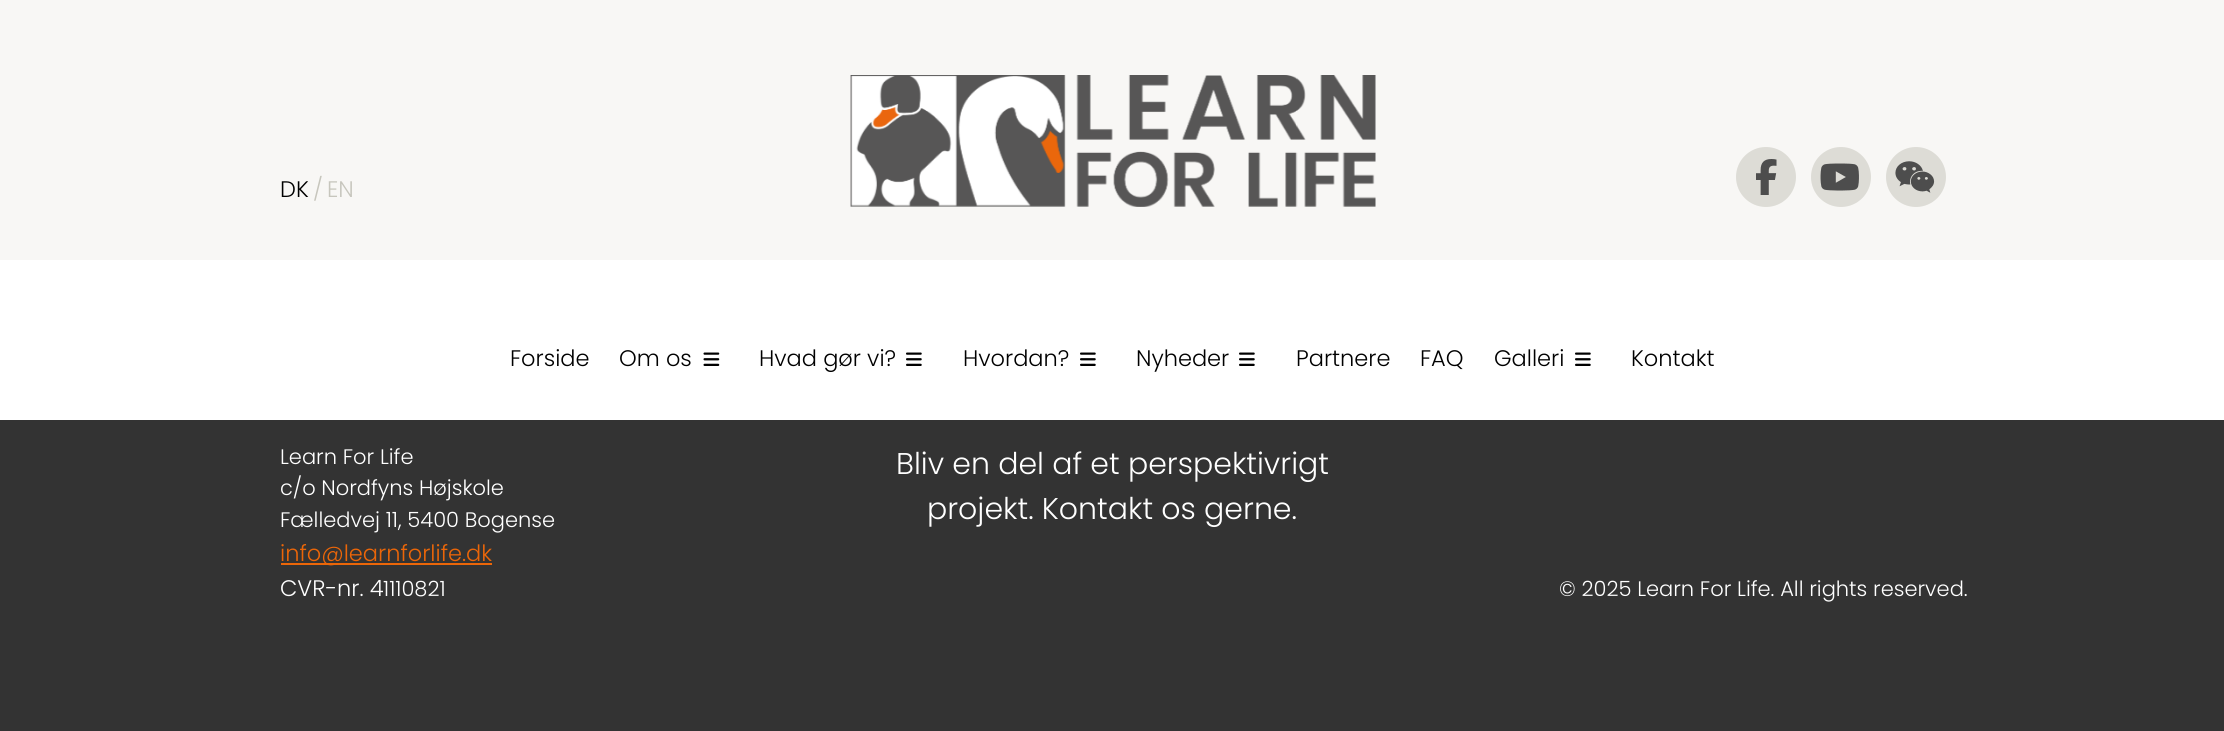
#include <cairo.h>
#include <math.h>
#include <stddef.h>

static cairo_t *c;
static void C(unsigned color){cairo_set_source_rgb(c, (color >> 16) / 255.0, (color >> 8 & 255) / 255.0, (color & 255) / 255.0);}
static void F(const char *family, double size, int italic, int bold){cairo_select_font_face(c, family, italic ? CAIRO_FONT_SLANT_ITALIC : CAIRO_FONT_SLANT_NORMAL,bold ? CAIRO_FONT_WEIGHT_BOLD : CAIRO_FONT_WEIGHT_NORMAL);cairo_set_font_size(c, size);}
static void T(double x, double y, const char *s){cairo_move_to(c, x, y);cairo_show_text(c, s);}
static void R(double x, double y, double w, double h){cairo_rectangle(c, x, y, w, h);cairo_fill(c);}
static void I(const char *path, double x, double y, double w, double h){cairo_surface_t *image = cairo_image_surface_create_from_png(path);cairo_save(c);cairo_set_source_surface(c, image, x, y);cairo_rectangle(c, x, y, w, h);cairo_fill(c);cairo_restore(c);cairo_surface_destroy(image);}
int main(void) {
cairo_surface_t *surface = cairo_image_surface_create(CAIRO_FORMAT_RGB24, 2224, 731);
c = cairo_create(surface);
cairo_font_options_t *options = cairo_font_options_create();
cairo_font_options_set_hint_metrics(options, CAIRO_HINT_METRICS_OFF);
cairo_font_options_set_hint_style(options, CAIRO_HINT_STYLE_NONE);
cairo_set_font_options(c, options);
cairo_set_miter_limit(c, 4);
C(0x333333);
cairo_paint(c);
C(0xffffff);
R(0,260,2224,160);
C(0xf8f7f5);
R(0,0,2224,260);
F("Poppins Light",22.5,0,0);
C(0x000000);
T(280,197,"DK");
C(0xc7c6bd);
T(313,197,"/");
T(327,197,"EN");
I("1.png",850,75,526,132);
C(0xdddcd6);
cairo_arc(c,1766,177,30,0,2 * M_PI);
cairo_fill(c);
I("2.png",1756,159,21,36);
cairo_arc(c,1841,177,30,0,2 * M_PI);
cairo_fill(c);
I("3.png",1820,163,39,28);
cairo_arc(c,1916,177,30,0,2 * M_PI);
cairo_fill(c);
I("4.png",1895,161,40,32);
C(0x000000);
T(510,366,"Forside");
T(619,366,"Om os");
I("5.png",703,352,17,14);
T(759,366,"Hvad gør vi?");
I("6.png",906,352,16,14);
T(963,366,"Hvordan?");
I("6.png",1080,352,16,14);
T(1136,366,"Nyheder");
I("6.png",1239,352,16,14);
T(1296,366,"Partnere");
T(1420,366,"FAQ");
T(1494,366,"Galleri");
I("6.png",1575,352,16,14);
T(1631,366,"Kontakt");
F("Poppins Light",21,0,0);
C(0xffffff);
T(280,464,"Learn For Life");
T(280,495,"c/o Nordfyns Højskole");
T(280,527,"Fælledvej 11, 5400 Bogense");
C(0xec6608);
R(281,563,211,2);
F("Poppins Light",22.5,0,0);
T(280,561,"info@learnforlife.dk");
C(0xffffff);
T(280,596,"CVR-nr. 4");
F("Poppins Light",21,0,0);
T(383,596,"1110821");
F("Poppins Light",30,0,0);
T(896,474,"Bliv en del af et perspektivrigt");
T(927,519,"projekt. Kontakt os gerne.");
F("Poppins Light",21,0,0);
T(1559,596,"© 2025 Learn For Life. All rights reserved.");
cairo_surface_write_to_png(surface, "o.png");
cairo_font_options_destroy(options);
cairo_destroy(c);
cairo_surface_destroy(surface);
return 0;
}
